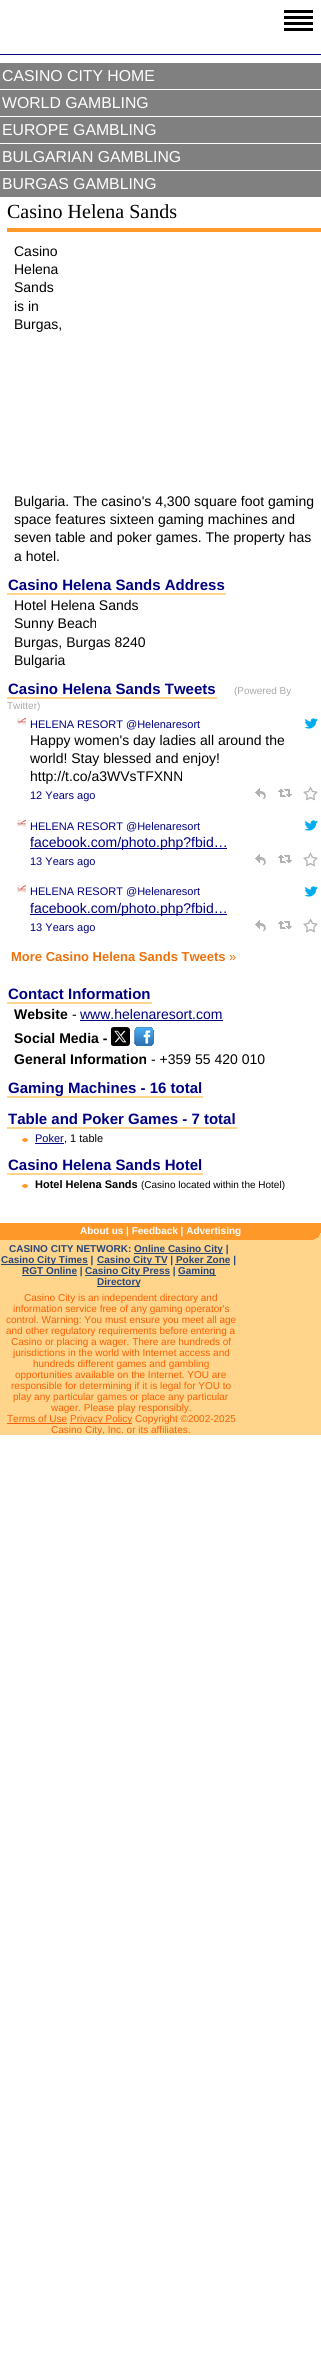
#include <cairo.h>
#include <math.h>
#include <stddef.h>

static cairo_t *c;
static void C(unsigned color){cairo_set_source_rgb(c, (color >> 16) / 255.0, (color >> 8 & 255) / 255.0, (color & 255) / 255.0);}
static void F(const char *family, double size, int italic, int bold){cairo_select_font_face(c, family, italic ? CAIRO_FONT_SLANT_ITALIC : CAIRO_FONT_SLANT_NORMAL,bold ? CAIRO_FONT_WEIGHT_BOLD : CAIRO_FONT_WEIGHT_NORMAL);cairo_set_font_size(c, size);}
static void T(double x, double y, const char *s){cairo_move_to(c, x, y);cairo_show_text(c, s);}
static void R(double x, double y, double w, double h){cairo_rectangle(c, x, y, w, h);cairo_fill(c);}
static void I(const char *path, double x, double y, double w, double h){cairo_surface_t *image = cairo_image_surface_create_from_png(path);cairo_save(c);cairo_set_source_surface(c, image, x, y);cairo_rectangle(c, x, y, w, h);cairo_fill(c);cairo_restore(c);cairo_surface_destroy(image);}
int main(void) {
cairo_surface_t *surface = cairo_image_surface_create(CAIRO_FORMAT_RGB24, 321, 2361);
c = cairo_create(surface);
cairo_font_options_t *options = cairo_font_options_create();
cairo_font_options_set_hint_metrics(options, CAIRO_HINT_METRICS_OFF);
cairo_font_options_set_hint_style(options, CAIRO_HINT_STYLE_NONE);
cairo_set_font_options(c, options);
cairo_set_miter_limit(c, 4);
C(0xffffff);
cairo_paint(c);
C(0x000000);
R(284,10,29,3);
R(284,16,29,3);
R(284,22,29,3);
R(284,28,29,3);
C(0x000080);
R(0,54,321,1);
C(0x808080);
R(0,63,321,26);
F("Liberation Sans",15.8,0,0);
C(0xffffff);
T(2,81,"CASINO CITY HOME");
C(0x808080);
R(0,90,321,26);
C(0xffffff);
T(2,108,"WORLD GAMBLING");
C(0x808080);
R(0,117,321,26);
C(0xffffff);
T(2,135,"EUROPE GAMBLING");
C(0x808080);
R(0,144,321,26);
C(0xffffff);
T(2,162,"BULGARIAN GAMBLING");
C(0x808080);
R(0,171,321,26);
C(0xffffff);
T(2,189,"BURGAS GAMBLING");
F("Liberation Serif",20,0,0);
C(0x000000);
T(7,218,"Casino Helena Sands");
C(0xfe9929);
R(7,228,314,4);
F("Liberation Sans",14,0,0);
C(0x000000);
T(14,256,"Casino");
T(14,274,"Helena");
T(14,292,"Sands");
T(14,311,"is in");
T(14,329,"Burgas,");
T(14,506,"Bulgaria. The casino's 4,300 square foot gaming");
T(14,524,"space features sixteen gaming machines and");
T(14,542,"seven table and poker games. The property has");
T(14,561,"a hotel.");
F("Liberation Sans",15,0,1);
C(0x000080);
T(8,590,"Casino Helena Sands Address");
C(0xfed58a);
R(7,593,219,2);
F("Liberation Sans",14,0,0);
C(0x000000);
T(14,610,"Hotel Helena Sands");
T(14,628,"Sunny Beach");
T(14,647,"Burgas, Burgas 8240");
T(14,665,"Bulgaria");
F("Liberation Sans",15,0,1);
C(0x000080);
T(8,694,"Casino Helena Sands Tweets");
C(0xfed58a);
R(7,697,210,2);
F("Liberation Sans",10,0,0);
C(0xa9a9a9);
T(234,694,"(Powered By");
T(7,709,"Twitter)");
I("1.png",17,717,9,8);
F("Liberation Sans",11,0,0);
C(0x000080);
T(30,728,"HELENA RESORT @Helenaresort");
I("2.png",304,718,14,11);
F("Liberation Sans",14,0,0);
C(0x000000);
T(30,745,"Happy women's day ladies all around the");
T(30,763,"world! Stay blessed and enjoy!");
T(30,781,"http://t.co/a3WVsTFXNN");
F("Liberation Sans",11,0,0);
C(0x000080);
T(30,799,"12 Years ago");
I("3.png",255,788,11,12);
I("4.png",278,789,14,8);
I("5.png",303,786,15,15);
I("1.png",17,819,9,8);
T(30,830,"HELENA RESORT @Helenaresort");
I("2.png",304,820,14,11);
R(30,848,197,1);
F("Liberation Sans",14,0,0);
T(30,847,"facebook.com/photo.php?fbid…");
F("Liberation Sans",11,0,0);
T(30,865,"13 Years ago");
I("3.png",255,854,11,12);
I("4.png",278,855,14,8);
I("5.png",303,852,15,15);
I("6.png",17,884,9,9);
T(30,895,"HELENA RESORT @Helenaresort");
I("2.png",304,886,14,11);
R(30,914,197,1);
F("Liberation Sans",14,0,0);
T(30,913,"facebook.com/photo.php?fbid…");
F("Liberation Sans",11,0,0);
T(30,931,"13 Years ago");
I("3.png",255,920,11,12);
I("4.png",278,921,14,8);
I("5.png",303,918,15,15);
F("Liberation Sans",13,0,1);
C(0xee710b);
T(11,961,"More Casino Helena Sands Tweets");
F("Liberation Sans",13,0,0);
T(229,961,"»");
F("Liberation Sans",15,0,1);
C(0x000080);
T(8,999,"Contact Information");
C(0xfed58a);
R(7,1002,145,2);
F("Liberation Sans",14,0,1);
C(0x000000);
T(14,1019,"Website");
F("Liberation Sans",14,0,0);
T(72,1019,"-");
C(0x000080);
T(80,1019,"www.helenaresort.com");
R(80,1020,143,1);
F("Liberation Sans",14,0,1);
C(0x000000);
T(14,1043,"Social Media -");
I("7.png",111,1027,19,19);
I("8.png",134,1027,20,19);
T(14,1064,"General Information");
F("Liberation Sans",14,0,0);
T(151,1064,"- +359 55 420 010");
C(0xfed58a);
R(7,1096,196,2);
F("Liberation Sans",15,0,1);
C(0x000080);
T(8,1093,"Gaming Machines - 16 total");
T(8,1124,"Table and Poker Games - 7 total");
C(0xfed58a);
R(7,1127,230,2);
I("9.png",22,1138,6,4);
F("Liberation Sans",11,0,0);
C(0x000080);
T(35,1142,"Poker");
R(35,1143,29,1);
C(0x000000);
T(64,1142,", 1 table");
F("Liberation Sans",15,0,1);
C(0x000080);
T(8,1170,"Casino Helena Sands Hotel");
C(0xfed58a);
R(7,1173,196,2);
I("9.png",22,1184,6,4);
F("Liberation Sans",11,0,1);
C(0x000000);
T(35,1188,"Hotel Helena Sands");
F("Liberation Sans",10,0,0);
T(141,1188,"(Casino located within the Hotel)");
C(0xfe9929);
R(0,1223,321,17);
I("10.png",314,1233,7,7);
F("Liberation Sans",10,0,1);
C(0xffffff);
T(80,1234,"About us | Feedback | Advertising");
C(0xfed58a);
R(0,1240,321,47);
C(0x2a4679);
T(9,1252,"CASINO CITY NETWORK:");
R(134,1253,89,1);
T(134,1252,"Online Casino City |");
R(1,1264,87,1);
T(1,1263,"Casino City Times |");
R(97,1264,70,1);
T(97,1263,"Casino City TV | Poker Zone |");
R(175,1264,55,1);
R(22,1275,55,1);
T(22,1274,"RGT Online |");
R(85,1275,85,1);
T(85,1274,"Casino City Press |");
R(178,1275,38,1);
T(178,1274,"Gaming");
R(97,1286,43,1);
T(97,1285,"Directory");
C(0xfed58a);
R(0,1287,321,148);
F("Liberation Sans",10,0,0);
C(0xfd6002);
T(24,1301,"Casino City is an independent directory and");
T(13,1312,"information service free of any gaming operator's");
T(6,1323,"control. Warning: You must ensure you meet all age");
T(6,1334,"and other regulatory requirements before entering a");
T(11,1345,"Casino or placing a wager. There are hundreds of");
T(13,1356,"jurisdictions in the world with Internet access and");
T(33,1367,"hundreds different games and gambling");
T(15,1378,"opportunities available on the Internet. YOU are");
T(11,1389,"responsible for determining if it is legal for YOU to");
T(13,1400,"play any particular games or place any particular");
T(51,1411,"wager. Please play responsibly.");
T(7,1422,"Terms of Use");
R(7,1423,60,1);
R(70,1423,62,1);
T(70,1422,"Privacy Policy Copyright ©2002-2025");
T(51,1433,"Casino City, Inc. or its affiliates.");
cairo_surface_write_to_png(surface, "o.png");
cairo_font_options_destroy(options);
cairo_destroy(c);
cairo_surface_destroy(surface);
return 0;
}
